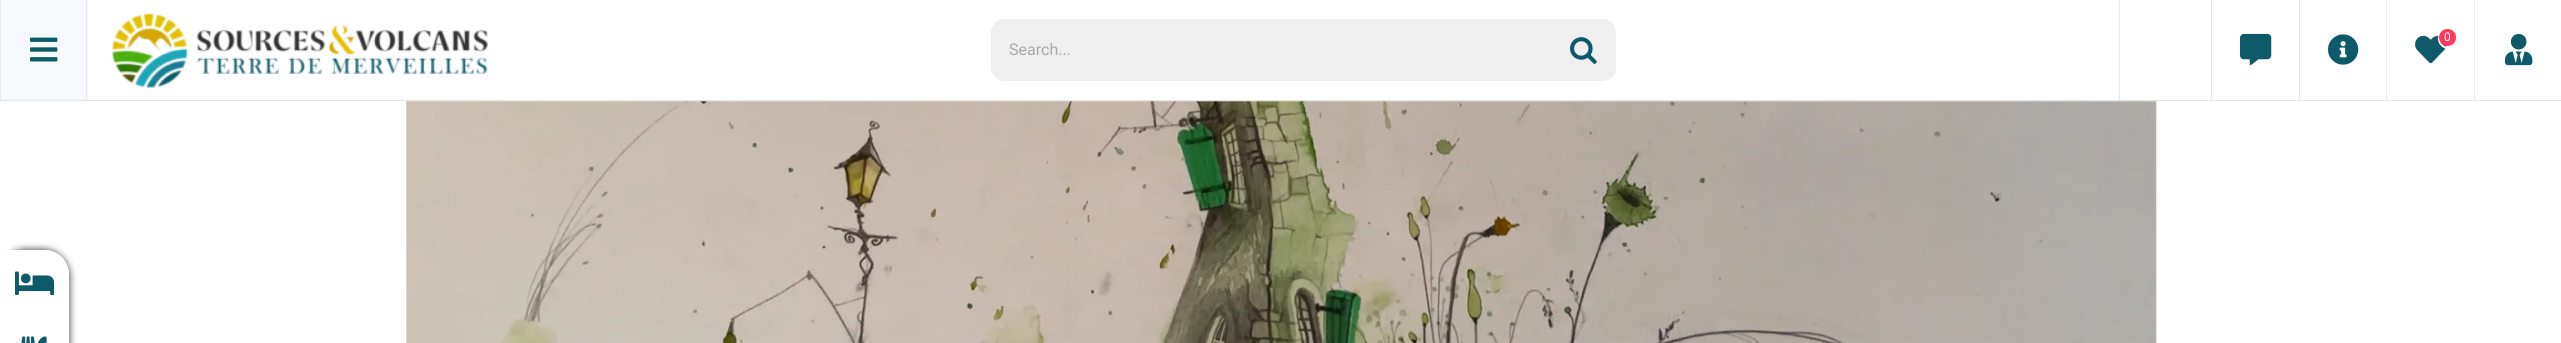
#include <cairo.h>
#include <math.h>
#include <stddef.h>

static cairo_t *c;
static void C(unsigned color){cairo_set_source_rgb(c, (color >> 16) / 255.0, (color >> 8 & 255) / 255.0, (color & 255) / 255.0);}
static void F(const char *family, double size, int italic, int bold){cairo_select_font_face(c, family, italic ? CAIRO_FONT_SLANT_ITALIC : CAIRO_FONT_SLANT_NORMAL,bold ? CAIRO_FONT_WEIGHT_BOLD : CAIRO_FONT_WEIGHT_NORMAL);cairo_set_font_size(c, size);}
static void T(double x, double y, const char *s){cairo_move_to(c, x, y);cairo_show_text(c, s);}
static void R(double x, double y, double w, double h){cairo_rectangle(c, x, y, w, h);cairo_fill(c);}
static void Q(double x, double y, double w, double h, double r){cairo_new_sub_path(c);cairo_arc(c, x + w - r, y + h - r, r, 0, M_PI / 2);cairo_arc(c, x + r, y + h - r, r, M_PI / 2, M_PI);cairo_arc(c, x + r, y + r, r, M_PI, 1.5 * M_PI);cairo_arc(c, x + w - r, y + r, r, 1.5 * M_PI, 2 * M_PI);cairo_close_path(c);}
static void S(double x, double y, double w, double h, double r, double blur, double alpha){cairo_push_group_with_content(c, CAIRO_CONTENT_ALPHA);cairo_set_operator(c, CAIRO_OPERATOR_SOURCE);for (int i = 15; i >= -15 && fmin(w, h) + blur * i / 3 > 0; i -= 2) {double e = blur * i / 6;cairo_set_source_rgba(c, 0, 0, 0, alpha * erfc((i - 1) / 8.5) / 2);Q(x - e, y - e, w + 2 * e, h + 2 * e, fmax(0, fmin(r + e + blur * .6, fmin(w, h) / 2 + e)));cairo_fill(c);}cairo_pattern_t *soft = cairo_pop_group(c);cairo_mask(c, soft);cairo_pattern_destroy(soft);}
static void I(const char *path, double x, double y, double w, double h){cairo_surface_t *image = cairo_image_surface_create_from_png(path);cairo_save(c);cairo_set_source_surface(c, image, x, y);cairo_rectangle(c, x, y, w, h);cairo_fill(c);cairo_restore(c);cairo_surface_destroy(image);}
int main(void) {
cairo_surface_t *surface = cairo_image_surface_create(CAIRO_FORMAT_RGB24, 2561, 343);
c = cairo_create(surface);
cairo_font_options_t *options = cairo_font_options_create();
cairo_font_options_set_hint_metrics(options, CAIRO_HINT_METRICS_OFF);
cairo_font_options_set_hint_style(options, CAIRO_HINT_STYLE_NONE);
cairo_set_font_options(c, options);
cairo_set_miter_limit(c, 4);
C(0xffffff);
cairo_paint(c);
C(0xe5e5e5);
R(0,100,2561,1);
C(0xf6f9fc);
R(1,0,87,100);
C(0xe3e9ef);
R(86,0,1,100);
R(0,0,1,100);
I("1.png",30,37,28,25);
I("2.png",112,13,376,75);
R(2119,0,1,100);
R(2211,0,1,100);
I("3.png",2240,33,32,33);
R(2299,0,1,100);
I("4.png",2328,34,31,31);
R(2386,0,1,100);
I("5.png",2415,35,32,29);
cairo_arc(c,2448.5,38.5,9.5,0,2 * M_PI);
C(0xffffff);
cairo_stroke(c);
C(0xff385c);
cairo_arc(c,2447.5,37.5,8.5,0,2 * M_PI);
cairo_fill(c);
F("Roboto",12,0,0);
C(0xffffff);
T(2444,41,"0");
C(0xe3e9ef);
R(2474,0,1,100);
I("6.png",2505,33,28,33);
C(0xefefef);
cairo_new_path(c);
cairo_move_to(c,1004,19);
cairo_line_to(c,1570,19);
cairo_line_to(c,1570,81);
cairo_line_to(c,1004,81);
cairo_curve_to(c,997,81,991,75,991,68);
cairo_line_to(c,991,32);
cairo_curve_to(c,991,25,997,19,1004,19);
cairo_close_path(c);
cairo_fill(c);
F("Roboto",16,0,0);
C(0xaaa9a9);
T(1009,55,"Search...");
C(0xefefef);
cairo_new_path(c);
cairo_move_to(c,1570,19);
cairo_line_to(c,1603,19);
cairo_curve_to(c,1610,19,1616,25,1616,32);
cairo_line_to(c,1616,68);
cairo_curve_to(c,1616,75,1610,81,1603,81);
cairo_line_to(c,1570,81);
cairo_close_path(c);
cairo_fill(c);
I("7.png",1570,37,27,27);
I("8.png",406,101,1751,242);
cairo_save(c);
cairo_set_fill_rule(c,CAIRO_FILL_RULE_EVEN_ODD);
cairo_new_path(c);
cairo_move_to(c,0,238);
cairo_line_to(c,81,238);
cairo_line_to(c,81,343);
cairo_line_to(c,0,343);
cairo_close_path(c);
cairo_move_to(c,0,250);
cairo_line_to(c,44,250);
cairo_curve_to(c,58,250,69,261,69,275);
cairo_line_to(c,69,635);
cairo_curve_to(c,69,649,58,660,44,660);
cairo_line_to(c,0,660);
cairo_close_path(c);
cairo_clip(c);
C(0x000000);
S(-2,248,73,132,28,3,.52);
cairo_restore(c);
cairo_set_source_rgba(c,1,1,1,0.95);
cairo_new_path(c);
cairo_move_to(c,0,250);
cairo_line_to(c,44,250);
cairo_curve_to(c,58,250,69,261,69,275);
cairo_line_to(c,69,319);
cairo_line_to(c,0,319);
cairo_close_path(c);
cairo_fill(c);
I("9.png",15,271,40,24);
R(68,319,1,24);
I("10.png",21,336,26,7);
cairo_surface_write_to_png(surface, "o.png");
cairo_font_options_destroy(options);
cairo_destroy(c);
cairo_surface_destroy(surface);
return 0;
}
